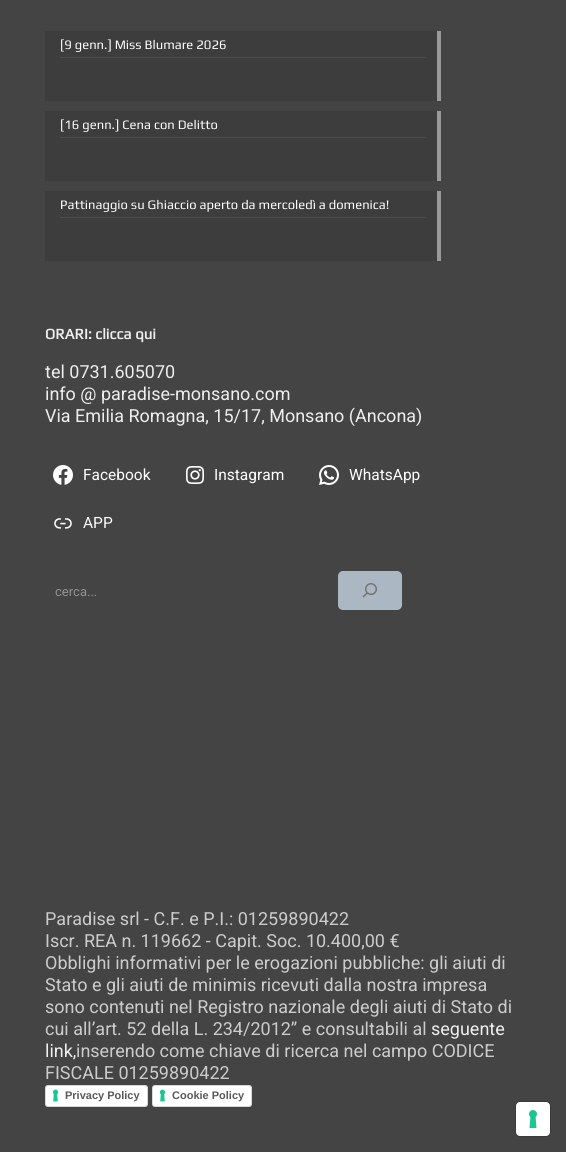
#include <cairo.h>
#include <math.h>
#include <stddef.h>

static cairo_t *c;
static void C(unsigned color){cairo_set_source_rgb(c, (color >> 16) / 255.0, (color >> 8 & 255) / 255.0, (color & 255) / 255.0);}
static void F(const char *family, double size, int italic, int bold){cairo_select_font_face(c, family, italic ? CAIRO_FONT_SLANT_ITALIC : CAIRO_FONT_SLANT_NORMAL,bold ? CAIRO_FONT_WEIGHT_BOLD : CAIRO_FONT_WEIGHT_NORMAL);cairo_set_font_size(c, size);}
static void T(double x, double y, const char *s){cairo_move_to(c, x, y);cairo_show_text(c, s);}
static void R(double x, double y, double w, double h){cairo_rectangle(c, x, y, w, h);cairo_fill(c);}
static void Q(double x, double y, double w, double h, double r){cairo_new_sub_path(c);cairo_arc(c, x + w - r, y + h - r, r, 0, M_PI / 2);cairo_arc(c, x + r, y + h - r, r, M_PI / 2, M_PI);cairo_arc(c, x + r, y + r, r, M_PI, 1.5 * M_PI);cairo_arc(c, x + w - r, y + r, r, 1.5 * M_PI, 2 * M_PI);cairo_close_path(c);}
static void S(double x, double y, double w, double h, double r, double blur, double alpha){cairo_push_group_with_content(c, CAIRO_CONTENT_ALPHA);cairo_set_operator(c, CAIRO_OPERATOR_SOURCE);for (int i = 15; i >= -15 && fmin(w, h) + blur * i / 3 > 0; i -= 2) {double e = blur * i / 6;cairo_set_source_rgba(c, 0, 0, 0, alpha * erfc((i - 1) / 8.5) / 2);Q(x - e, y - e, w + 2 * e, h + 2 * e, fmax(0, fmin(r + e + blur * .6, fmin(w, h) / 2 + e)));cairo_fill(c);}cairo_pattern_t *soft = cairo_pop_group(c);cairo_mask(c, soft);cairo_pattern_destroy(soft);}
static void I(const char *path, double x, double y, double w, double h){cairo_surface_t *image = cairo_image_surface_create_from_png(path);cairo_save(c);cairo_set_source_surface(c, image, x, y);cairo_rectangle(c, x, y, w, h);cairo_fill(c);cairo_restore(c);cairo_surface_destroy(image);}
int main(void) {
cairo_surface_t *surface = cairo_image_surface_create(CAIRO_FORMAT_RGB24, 566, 1152);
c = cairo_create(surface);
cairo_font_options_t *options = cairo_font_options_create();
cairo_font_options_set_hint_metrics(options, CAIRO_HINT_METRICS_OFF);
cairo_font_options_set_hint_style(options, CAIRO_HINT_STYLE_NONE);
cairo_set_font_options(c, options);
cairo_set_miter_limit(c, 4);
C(0x444444);
cairo_paint(c);
C(0x3d3d3d);
R(45,31,392,70);
C(0x4d4d4d);
R(60,57,366,1);
F("Play",13,0,0);
C(0xffffff);
T(60,49,"[9 genn.] Miss Blumare 2026");
C(0x999999);
R(437,31,4,70);
C(0x3d3d3d);
R(45,111,392,70);
C(0x4d4d4d);
R(60,137,366,1);
C(0xffffff);
T(60,129,"[16 genn.] Cena con Delitto");
C(0x999999);
R(437,111,4,70);
C(0x3d3d3d);
R(45,191,392,70);
C(0x4d4d4d);
R(60,217,366,1);
C(0xffffff);
T(60,209,"Pattinaggio su Ghiaccio aperto da mercoledì a domenica!");
C(0x999999);
R(437,191,4,70);
F("Play",15,0,1);
C(0xeeeeee);
T(45,339,"ORARI: clicca qui");
F("Roboto",18,0,0);
T(45,378,"tel 0731.605070");
T(45,400,"info @ paradise-monsano.com");
T(45,422,"Via Emilia Romagna, 15/17, Monsano (Ancona)");
I("1.png",53,465,20,20);
F("Roboto",15.5,0,0);
C(0xffffff);
T(83,480,"Facebook");
I("2.png",186,466,18,18);
T(214,480,"Instagram");
I("3.png",319,465,20,20);
T(349,480,"WhatsApp");
I("4.png",54,518,18,11);
T(83,528,"APP");
F("Roboto",13,0,0);
C(0x929292);
T(55,596,"cerca...");
C(0xabb8c3);
Q(338,571,64,39,5);
cairo_fill(c);
I("5.png",362,583,16,15);
F("Roboto",18,0,0);
C(0xcccccc);
T(45,925,"Paradise srl - C.F. e P.I.: 01259890422");
T(45,947,"Iscr. REA n. 119662 - Capit. Soc. 10.400,00 €");
T(45,969,"Obblighi informativi per le erogazioni pubbliche: gli aiuti di");
T(45,991,"Stato e gli aiuti de minimis ricevuti dalla nostra impresa");
T(45,1013,"sono contenuti nel Registro nazionale degli aiuti di Stato di");
T(45,1035,"cui all’art. 52 della L. 234/2012” e consultabili al");
C(0xeeeeee);
T(431,1035,"seguente");
T(45,1057,"link,");
C(0xcccccc);
T(76,1057,"inserendo come chiave di ricerca nel campo CODICE");
T(45,1079,"FISCALE 01259890422");
C(0x000000);
S(46,1087,101,20,2,.5,.15);
C(0xffffff);
Q(45,1085,103,22,3);
cairo_fill(c);
I("6.png",52,1089,7,13);
Q(45.5,1085.5,102,21,2.5);
cairo_set_source_rgba(c,0,0,0,0.15);
cairo_set_line_width(c,1);
cairo_stroke(c);
F("Liberation Sans",11,0,1);
C(0x595959);
T(65,1099,"Privacy Policy");
C(0x000000);
S(153,1087,98,20,2,.5,.15);
C(0xffffff);
Q(152,1085,100,22,3);
cairo_fill(c);
I("6.png",159,1089,7,13);
Q(152.5,1085.5,99,21,2.5);
cairo_set_source_rgba(c,0,0,0,0.15);
cairo_stroke(c);
C(0x595959);
T(172,1099,"Cookie Policy");
Q(515.5,1101.5,35,35,4.5);
C(0x3a3a3a);
cairo_stroke(c);
C(0xffffff);
Q(516,1102,34,34,4);
cairo_fill(c);
I("7.png",529,1110,8,18);
cairo_surface_write_to_png(surface, "o.png");
cairo_font_options_destroy(options);
cairo_destroy(c);
cairo_surface_destroy(surface);
return 0;
}
